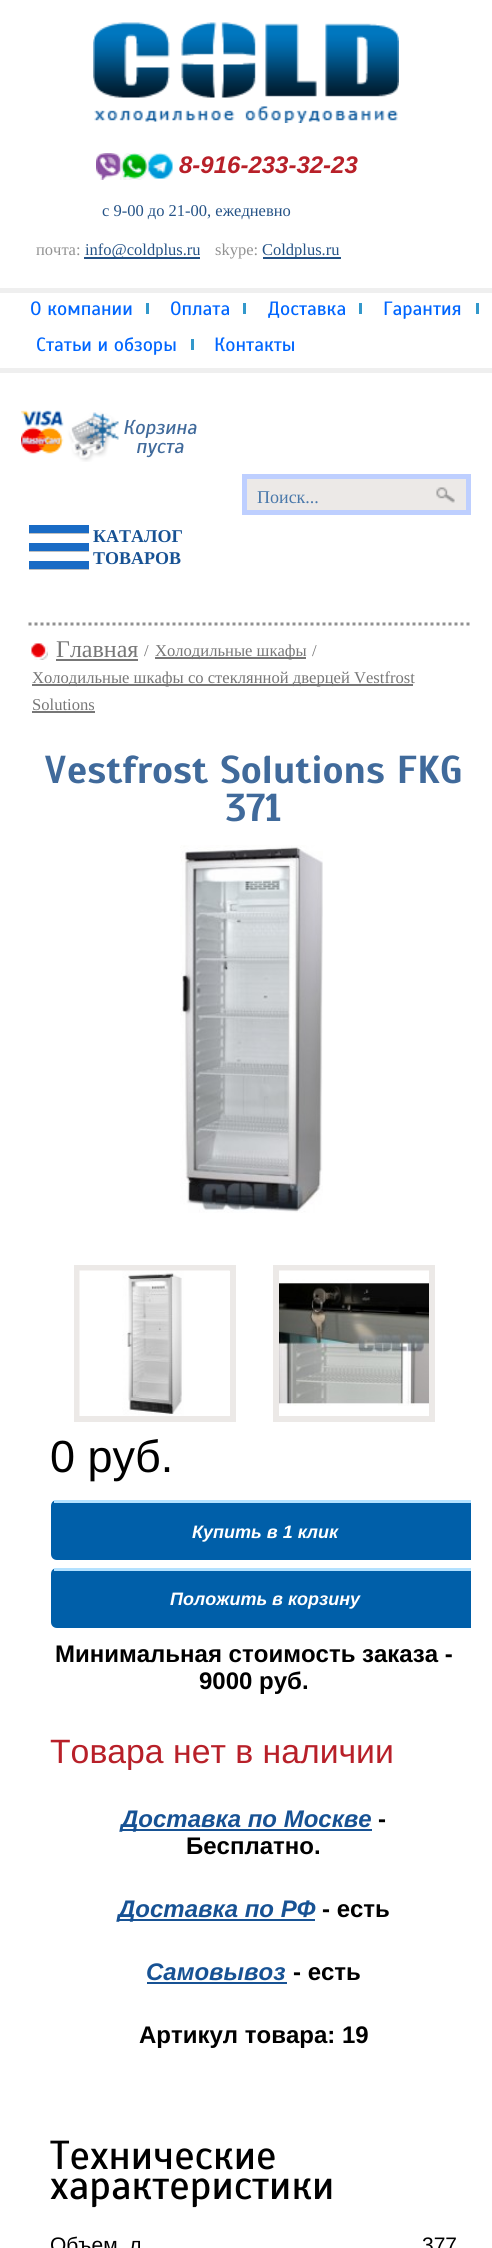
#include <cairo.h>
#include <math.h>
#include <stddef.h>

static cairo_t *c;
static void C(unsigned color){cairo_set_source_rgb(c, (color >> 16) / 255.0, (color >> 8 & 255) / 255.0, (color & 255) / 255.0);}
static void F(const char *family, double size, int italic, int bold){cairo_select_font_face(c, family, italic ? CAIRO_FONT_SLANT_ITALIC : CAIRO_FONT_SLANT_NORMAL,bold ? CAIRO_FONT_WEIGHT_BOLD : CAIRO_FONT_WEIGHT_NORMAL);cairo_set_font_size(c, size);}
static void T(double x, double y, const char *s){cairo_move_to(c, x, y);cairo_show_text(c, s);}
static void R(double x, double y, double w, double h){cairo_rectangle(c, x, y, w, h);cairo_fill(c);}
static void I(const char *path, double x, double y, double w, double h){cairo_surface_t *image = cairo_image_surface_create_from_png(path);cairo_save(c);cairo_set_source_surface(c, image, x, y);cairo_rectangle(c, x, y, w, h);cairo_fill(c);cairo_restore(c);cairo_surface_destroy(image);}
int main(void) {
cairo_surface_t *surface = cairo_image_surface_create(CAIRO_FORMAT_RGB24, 492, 2248);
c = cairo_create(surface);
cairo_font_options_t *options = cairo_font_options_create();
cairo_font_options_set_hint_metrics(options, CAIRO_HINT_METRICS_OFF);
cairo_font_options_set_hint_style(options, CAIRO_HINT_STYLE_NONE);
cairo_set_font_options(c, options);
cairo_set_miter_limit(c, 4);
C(0xffffff);
cairo_paint(c);
I("1.png",93,22,306,101);
I("2.png",96,153,77,27);
F("Liberation Sans",24,1,1);
C(0xb82029);
T(179,173,"8-916-233-32-23");
F("Liberation Serif",16.5,0,0);
C(0x245286);
T(102,216,"с 9-00 до 21-00, ежедневно");
C(0x929292);
T(36,255,"почта:");
C(0x245286);
R(84,257,116,2);
T(85,255,"info@coldplus.ru");
C(0x929292);
T(215,255,"skype:");
C(0x245286);
R(263,257,78,2);
T(262,255,"Coldplus.ru");
C(0xefefef);
R(0,288,492,5);
R(0,368,492,5);
C(0x3398cb);
R(146,303,3,11);
F("Scada",19.25,0,0);
C(0x0066ff);
T(30,315,"О компании");
C(0x3398cb);
R(243,303,3,11);
C(0x0066ff);
T(170,315,"Оплата");
C(0x3398cb);
R(359,303,3,11);
C(0x0066ff);
T(268,315,"Доставка");
C(0x3398cb);
R(476,303,3,11);
C(0x0066ff);
T(383,315,"Гарантия");
C(0x3398cb);
R(191,339,3,11);
C(0x0066ff);
T(36,351,"Статьи и обзоры");
T(214,351,"Контакты");
I("3.png",21,410,98,52);
F("Scada",20,1,0);
C(0x406a9b);
T(123,434,"Корзина");
T(136,453,"пуста");
C(0xece9e7);
cairo_rectangle(c,244.5,476.5,224,36);
cairo_fill_preserve(c);
C(0xbecfff);
cairo_set_line_width(c,5);
cairo_stroke(c);
F("Liberation Serif",18,0,0);
C(0x4978aa);
T(257,503,"Поиск...");
I("4.png",436,487,19,16);
C(0xbfbfbf);
cairo_new_path(c);
cairo_move_to(c,29,532);
cairo_line_to(c,29,534);
cairo_line_to(c,89,534);
cairo_line_to(c,89,527);
cairo_line_to(c,88,527);
cairo_line_to(c,88,532);
cairo_close_path(c);
cairo_fill(c);
C(0x196bc5);
R(29,525,60,8);
F("Liberation Serif",18,0,1);
C(0x175294);
T(93,542,"КАТАЛОГ");
T(93,564,"ТОВАРОВ");
C(0xbfbfbf);
cairo_new_path(c);
cairo_move_to(c,29,550);
cairo_line_to(c,29,552);
cairo_line_to(c,89,552);
cairo_line_to(c,89,545);
cairo_line_to(c,88,545);
cairo_line_to(c,88,550);
cairo_close_path(c);
cairo_fill(c);
C(0x196bc5);
R(29,543,60,8);
C(0xbfbfbf);
cairo_new_path(c);
cairo_move_to(c,29,568);
cairo_line_to(c,29,570);
cairo_line_to(c,89,570);
cairo_line_to(c,89,563);
cairo_line_to(c,88,563);
cairo_line_to(c,88,568);
cairo_close_path(c);
cairo_fill(c);
C(0x196bc5);
R(29,561,60,8);
cairo_save(c);
cairo_rectangle(c,21,515,450,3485);
cairo_clip(c);
cairo_new_path(c);
cairo_move_to(c,28.5,624);
cairo_line_to(c,478.5,624);
C(0x919191);
cairo_set_line_width(c,3);
cairo_set_dash(c,(double[]){3,3},2,0);
cairo_stroke(c);
cairo_restore(c);
I("5.png",31,643,17,17);
F("Liberation Serif",24,0,0);
C(0x777777);
T(56,657,"Главная");
R(56,659,82,2);
F("Liberation Serif",16.6,0,0);
T(144,656,"/");
R(155,657,151,2);
T(155,656,"Холодильные шкафы");
T(312,656,"/");
R(32,684,381,2);
T(32,683,"Холодильные шкафы со стеклянной дверцей Vestfrost");
T(32,710,"Solutions");
R(32,711,63,2);
F("Scada",39,0,1);
C(0x406a9b);
T(44,783,"Vestfrost Solutions FKG");
T(226,821,"371");
I("6.png",180,845,143,368);
cairo_rectangle(c,77,1268,156,151);
C(0xece9e7);
cairo_set_line_width(c,6);
cairo_stroke(c);
I("7.png",79,1270,151,146);
cairo_rectangle(c,276,1268,156,151);
cairo_stroke(c);
I("8.png",279,1270,150,136);
F("Liberation Sans",45,0,0);
C(0x000000);
T(50,1472,"0 руб.");
C(0x005fa9);
cairo_new_path(c);
cairo_move_to(c,57,1500);
cairo_line_to(c,471,1500);
cairo_line_to(c,471,1560);
cairo_line_to(c,57,1560);
cairo_curve_to(c,53.5,1560,51,1557.5,51,1554);
cairo_line_to(c,51,1506);
cairo_curve_to(c,51,1502.5,53.5,1500,57,1500);
cairo_close_path(c);
cairo_fill(c);
C(0xb3e1ff);
R(54,1500,417,3);
F("Liberation Sans",18,1,1);
C(0xffffff);
T(192,1538,"Купить в 1 клик");
C(0x005fa9);
cairo_new_path(c);
cairo_move_to(c,57,1568);
cairo_line_to(c,471,1568);
cairo_line_to(c,471,1628);
cairo_line_to(c,57,1628);
cairo_curve_to(c,53.5,1628,51,1625.5,51,1622);
cairo_line_to(c,51,1574);
cairo_curve_to(c,51,1570.5,53.5,1568,57,1568);
cairo_close_path(c);
cairo_fill(c);
C(0xb3e1ff);
R(54,1568,417,3);
C(0xffffff);
T(170,1605,"Положить в корзину");
F("Liberation Sans",24,0,1);
C(0x000000);
T(55,1662,"Минимальная стоимость заказа -");
T(199,1689,"9000 руб.");
F("Liberation Sans",33.75,0,0);
C(0xb82029);
T(50,1763,"Товара нет в наличии");
C(0x175294);
R(122,1829,250,2);
F("Liberation Sans",24,1,1);
T(121,1827,"Доставка по Москве");
F("Liberation Sans",24,0,1);
C(0x000000);
T(378,1827,"-");
T(186,1854,"Бесплатно.");
C(0x175294);
R(117,1919,198,2);
F("Liberation Sans",24,1,1);
T(118,1917,"Доставка по РФ");
F("Liberation Sans",24,0,1);
C(0x000000);
T(322,1917,"- есть");
F("Liberation Sans",24,1,1);
C(0x175294);
T(146,1980,"Самовывоз");
R(147,1982,140,2);
F("Liberation Sans",24,0,1);
C(0x000000);
T(293,1980,"- есть");
T(139,2043,"Артикул товара: 19");
F("Scada",40.5,0,0);
T(50,2169,"Технические");
T(50,2199,"характеристики");
F("Liberation Sans",21,0,0);
T(50,2252,"Объем, л");
T(422,2252,"377");
cairo_surface_write_to_png(surface, "o.png");
cairo_font_options_destroy(options);
cairo_destroy(c);
cairo_surface_destroy(surface);
return 0;
}
